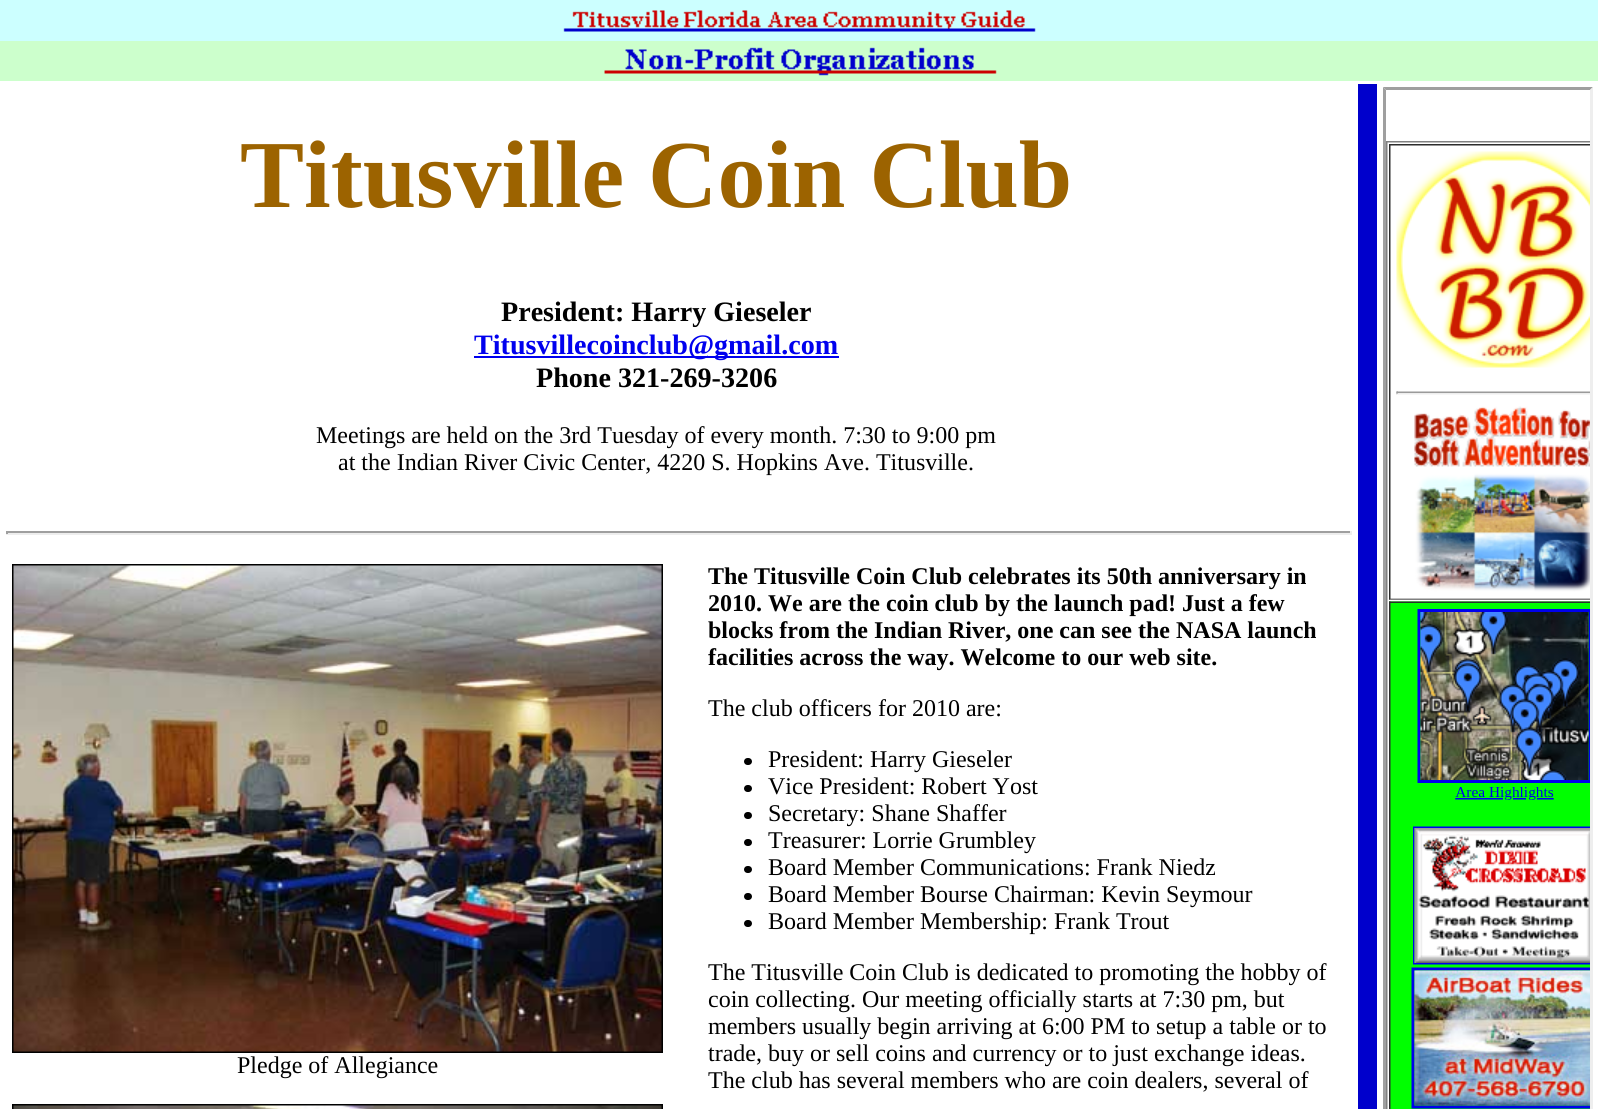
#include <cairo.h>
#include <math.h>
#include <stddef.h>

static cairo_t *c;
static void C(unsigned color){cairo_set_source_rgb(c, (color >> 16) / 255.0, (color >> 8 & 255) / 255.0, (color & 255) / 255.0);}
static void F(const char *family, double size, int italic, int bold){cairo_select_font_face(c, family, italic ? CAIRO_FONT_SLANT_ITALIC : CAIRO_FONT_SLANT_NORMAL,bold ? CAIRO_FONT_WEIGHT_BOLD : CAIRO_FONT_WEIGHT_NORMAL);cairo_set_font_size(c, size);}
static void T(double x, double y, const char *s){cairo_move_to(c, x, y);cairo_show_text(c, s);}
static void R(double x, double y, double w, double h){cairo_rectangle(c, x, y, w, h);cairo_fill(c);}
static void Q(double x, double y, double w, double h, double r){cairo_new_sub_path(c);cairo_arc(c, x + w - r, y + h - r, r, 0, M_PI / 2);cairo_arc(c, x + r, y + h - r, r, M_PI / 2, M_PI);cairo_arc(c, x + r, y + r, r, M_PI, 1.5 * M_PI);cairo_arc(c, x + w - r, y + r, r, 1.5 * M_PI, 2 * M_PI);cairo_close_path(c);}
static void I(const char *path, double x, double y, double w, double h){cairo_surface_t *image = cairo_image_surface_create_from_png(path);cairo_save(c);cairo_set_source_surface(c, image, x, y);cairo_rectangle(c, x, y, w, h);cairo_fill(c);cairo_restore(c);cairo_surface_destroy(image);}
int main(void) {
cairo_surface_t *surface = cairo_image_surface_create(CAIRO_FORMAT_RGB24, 1598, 1109);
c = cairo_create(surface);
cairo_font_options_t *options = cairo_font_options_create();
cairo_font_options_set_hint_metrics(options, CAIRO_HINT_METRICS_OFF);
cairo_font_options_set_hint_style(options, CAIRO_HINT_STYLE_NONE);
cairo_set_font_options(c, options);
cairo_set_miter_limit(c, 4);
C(0xffffff);
cairo_paint(c);
C(0xccffff);
R(0,0,1598,41);
I("1.png",563,10,473,22);
C(0xccffcc);
R(0,41,1598,40);
I("2.png",604,47,393,29);
F("Liberation Serif",96,0,1);
C(0x9c6300);
T(240,207,"Titusville Coin Club");
F("Liberation Serif",28.1,0,1);
C(0x000000);
T(501,321,"President: Harry Gieseler");
C(0x0000ee);
R(474,356,365,2);
T(474,354,"Titusvillecoinclub@gmail.com");
C(0x000000);
T(536,387,"Phone 321-269-3206");
F("Liberation Serif",24,0,0);
T(316,443,"Meetings are held on the 3rd Tuesday of every month. 7:30 to 9:00 pm");
T(338,470,"at the Indian River Civic Center, 4220 S. Hopkins Ave. Titusville.");
C(0x9f9f9f);
R(6,531,1346,2);
C(0xeeeeee);
R(1350,531,2,3);
R(6,533,1346,2);
C(0x9f9f9f);
R(6,531,2,3);
cairo_rectangle(c,13,565,649,487);
C(0x000000);
cairo_stroke(c);
I("3.png",13,565,649,487);
T(237,1073,"Pledge of Allegiance");
cairo_rectangle(c,13,1105,649,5);
cairo_stroke(c);
I("4.png",13,1105,649,4);
F("Liberation Serif",24,0,1);
T(708,584,"The Titusville Coin Club celebrates its 50th anniversary in");
T(708,611,"2010. We are the coin club by the launch pad! Just a few");
T(708,638,"blocks from the Indian River, one can see the NASA launch");
T(708,665,"facilities across the way. Welcome to our web site.");
F("Liberation Serif",24,0,0);
T(708,716,"The club officers for 2010 are:");
Q(744,758,8,7,3.5);
cairo_fill(c);
T(768,767,"President: Harry Gieseler");
Q(744,785,8,7,3.5);
cairo_fill(c);
T(768,794,"Vice President: Robert Yost");
Q(744,812,8,7,3.5);
cairo_fill(c);
T(768,821,"Secretary: Shane Shaffer");
Q(744,839,8,7,3.5);
cairo_fill(c);
T(768,848,"Treasurer: Lorrie Grumbley");
Q(744,866,8,7,3.5);
cairo_fill(c);
T(768,875,"Board Member Communications: Frank Niedz");
Q(744,893,8,7,3.5);
cairo_fill(c);
T(768,902,"Board Member Bourse Chairman: Kevin Seymour");
Q(744,920,8,7,3.5);
cairo_fill(c);
T(768,929,"Board Member Membership: Frank Trout");
T(708,980,"The Titusville Coin Club is dedicated to promoting the hobby of");
T(708,1007,"coin collecting. Our meeting officially starts at 7:30 pm, but");
T(708,1034,"members usually begin arriving at 6:00 PM to setup a table or to");
T(708,1061,"trade, buy or sell coins and currency or to just exchange ideas.");
T(708,1088,"The club has several members who are coin dealers, several of");
C(0x0000cc);
R(1358,84,19,1025);
C(0x9f9f9f);
cairo_new_path(c);
cairo_move_to(c,1383,87);
cairo_line_to(c,1593,87);
cairo_line_to(c,1590,90);
cairo_line_to(c,1386,90);
cairo_close_path(c);
cairo_fill(c);
cairo_new_path(c);
cairo_move_to(c,1383,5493);
cairo_line_to(c,1383,87);
cairo_line_to(c,1386,90);
cairo_line_to(c,1386,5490);
cairo_close_path(c);
cairo_fill(c);
I("5.png",1386,141,204,968);
C(0xeeeeee);
cairo_new_path(c);
cairo_move_to(c,1593,87);
cairo_line_to(c,1593,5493);
cairo_line_to(c,1590,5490);
cairo_line_to(c,1590,90);
cairo_close_path(c);
cairo_fill(c);
cairo_surface_write_to_png(surface, "o.png");
cairo_font_options_destroy(options);
cairo_destroy(c);
cairo_surface_destroy(surface);
return 0;
}
